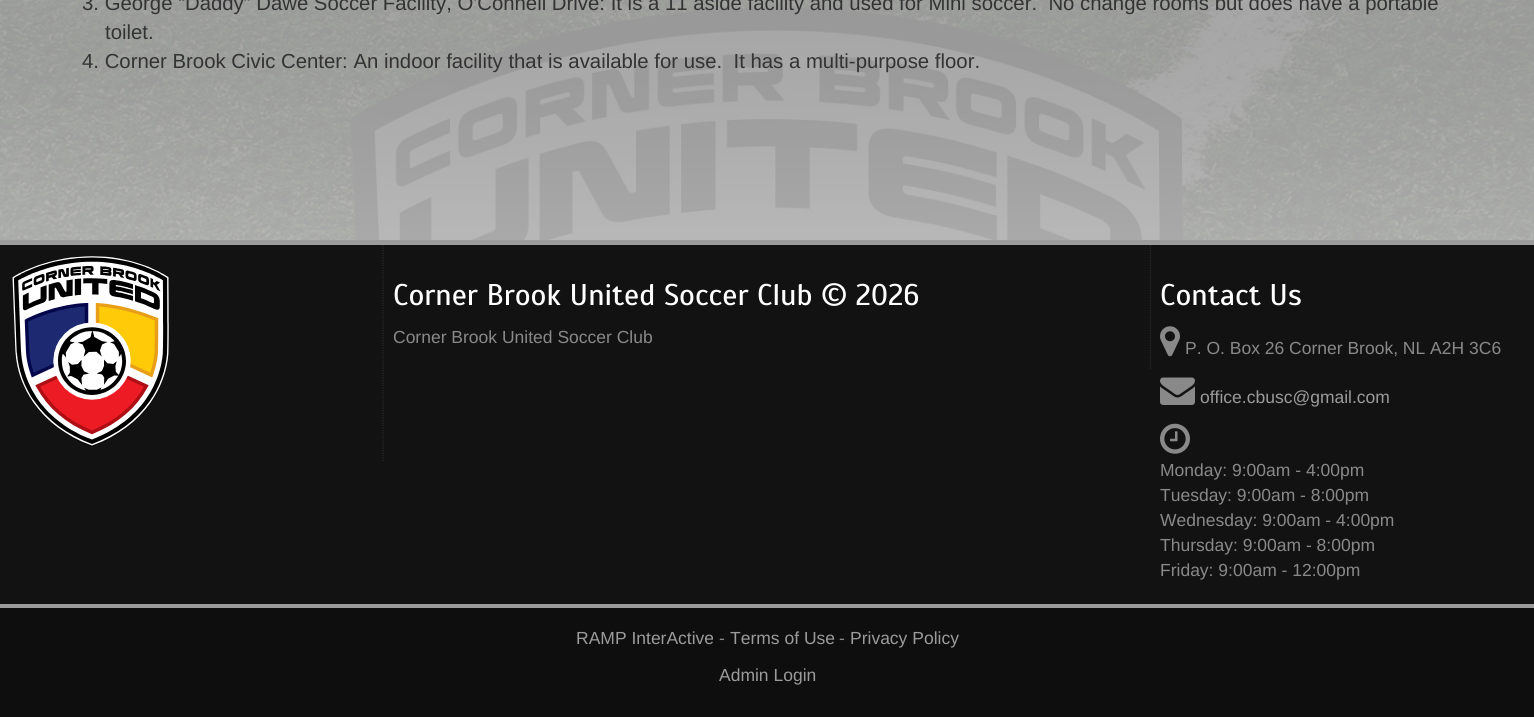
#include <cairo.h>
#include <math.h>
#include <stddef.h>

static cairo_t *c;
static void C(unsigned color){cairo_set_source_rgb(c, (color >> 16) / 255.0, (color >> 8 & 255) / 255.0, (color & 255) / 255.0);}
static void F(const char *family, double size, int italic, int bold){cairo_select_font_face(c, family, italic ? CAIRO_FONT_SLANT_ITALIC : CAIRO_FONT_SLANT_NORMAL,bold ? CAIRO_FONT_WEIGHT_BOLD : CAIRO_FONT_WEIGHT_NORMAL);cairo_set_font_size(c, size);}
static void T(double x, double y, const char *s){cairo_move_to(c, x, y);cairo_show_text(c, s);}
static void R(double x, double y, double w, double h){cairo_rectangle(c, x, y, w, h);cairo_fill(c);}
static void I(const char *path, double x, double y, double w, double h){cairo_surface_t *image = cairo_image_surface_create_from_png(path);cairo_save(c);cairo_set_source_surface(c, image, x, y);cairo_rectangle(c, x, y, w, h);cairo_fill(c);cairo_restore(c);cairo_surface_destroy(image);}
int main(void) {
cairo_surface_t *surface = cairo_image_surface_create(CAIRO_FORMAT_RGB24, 1534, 717);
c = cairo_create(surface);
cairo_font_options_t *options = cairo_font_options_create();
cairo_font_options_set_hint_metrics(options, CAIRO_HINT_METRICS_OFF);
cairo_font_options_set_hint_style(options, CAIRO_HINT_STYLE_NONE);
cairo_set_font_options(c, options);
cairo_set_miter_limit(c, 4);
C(0xffffff);
cairo_paint(c);
I("1.png",0,0,1534,240);
cairo_set_source_rgba(c,1,1,1,0.6);
R(0,0,1534,240);
F("Liberation Sans",20.35,0,0);
C(0x333333);
T(82,10,"3. George “Daddy” Dawe Soccer Facility, O'Connell Drive: It is a 11 aside facility and used for Mini soccer.  No change rooms but does have a portable");
T(105,39,"toilet.");
T(82,68,"4. Corner Brook Civic Center: An indoor facility that is available for use.  It has a multi-purpose floor.");
C(0x9b9b9b);
R(0,240,1534,5);
C(0x121212);
R(0,245,1534,359);
cairo_new_path(c);
cairo_move_to(c,383,245);
cairo_line_to(c,383,462.5);
C(0x2a2a2a);
cairo_set_line_width(c,1.2);
cairo_set_dash(c,(double[]){1.25,1.25},2,0);
cairo_stroke(c);
I("2.png",12,256,157,191);
cairo_new_path(c);
cairo_move_to(c,1150.5,245);
cairo_line_to(c,1150.5,370);
cairo_stroke(c);
F("Scada",30,0,0);
C(0xffffff);
T(393,305,"Corner Brook United Soccer Club © 2026");
F("Liberation Sans",17.5,0,0);
C(0x898989);
T(393,343,"Corner Brook United Soccer Club");
F("Scada",30,0,0);
C(0xffffff);
T(1160,305,"Contact Us");
I("3.png",1160,326,20,31);
F("Liberation Sans",17.5,0,0);
C(0x898989);
T(1185,354,"P. O. Box 26 Corner Brook, NL A2H 3C6");
I("4.png",1160,377,35,28);
C(0x9b9b9b);
T(1200,403,"office.cbusc@gmail.com");
I("5.png",1160,423,30,31);
C(0x898989);
T(1160,476,"Monday: 9:00am - 4:00pm");
T(1160,501,"Tuesday: 9:00am - 8:00pm");
T(1160,526,"Wednesday: 9:00am - 4:00pm");
T(1160,551,"Thursday: 9:00am - 8:00pm");
T(1160,576,"Friday: 9:00am - 12:00pm");
C(0x9b9b9b);
R(0,604,1534,4);
C(0x0e0e0e);
R(0,608,1534,109);
C(0x9b9b9b);
T(576,644,"RAMP InterActive");
C(0x898989);
T(719,644,"-");
C(0x9b9b9b);
T(730,644,"Terms of Use");
C(0x898989);
T(839,644,"-");
C(0x9b9b9b);
T(850,644,"Privacy Policy");
T(719,681,"Admin Login");
cairo_surface_write_to_png(surface, "o.png");
cairo_font_options_destroy(options);
cairo_destroy(c);
cairo_surface_destroy(surface);
return 0;
}
